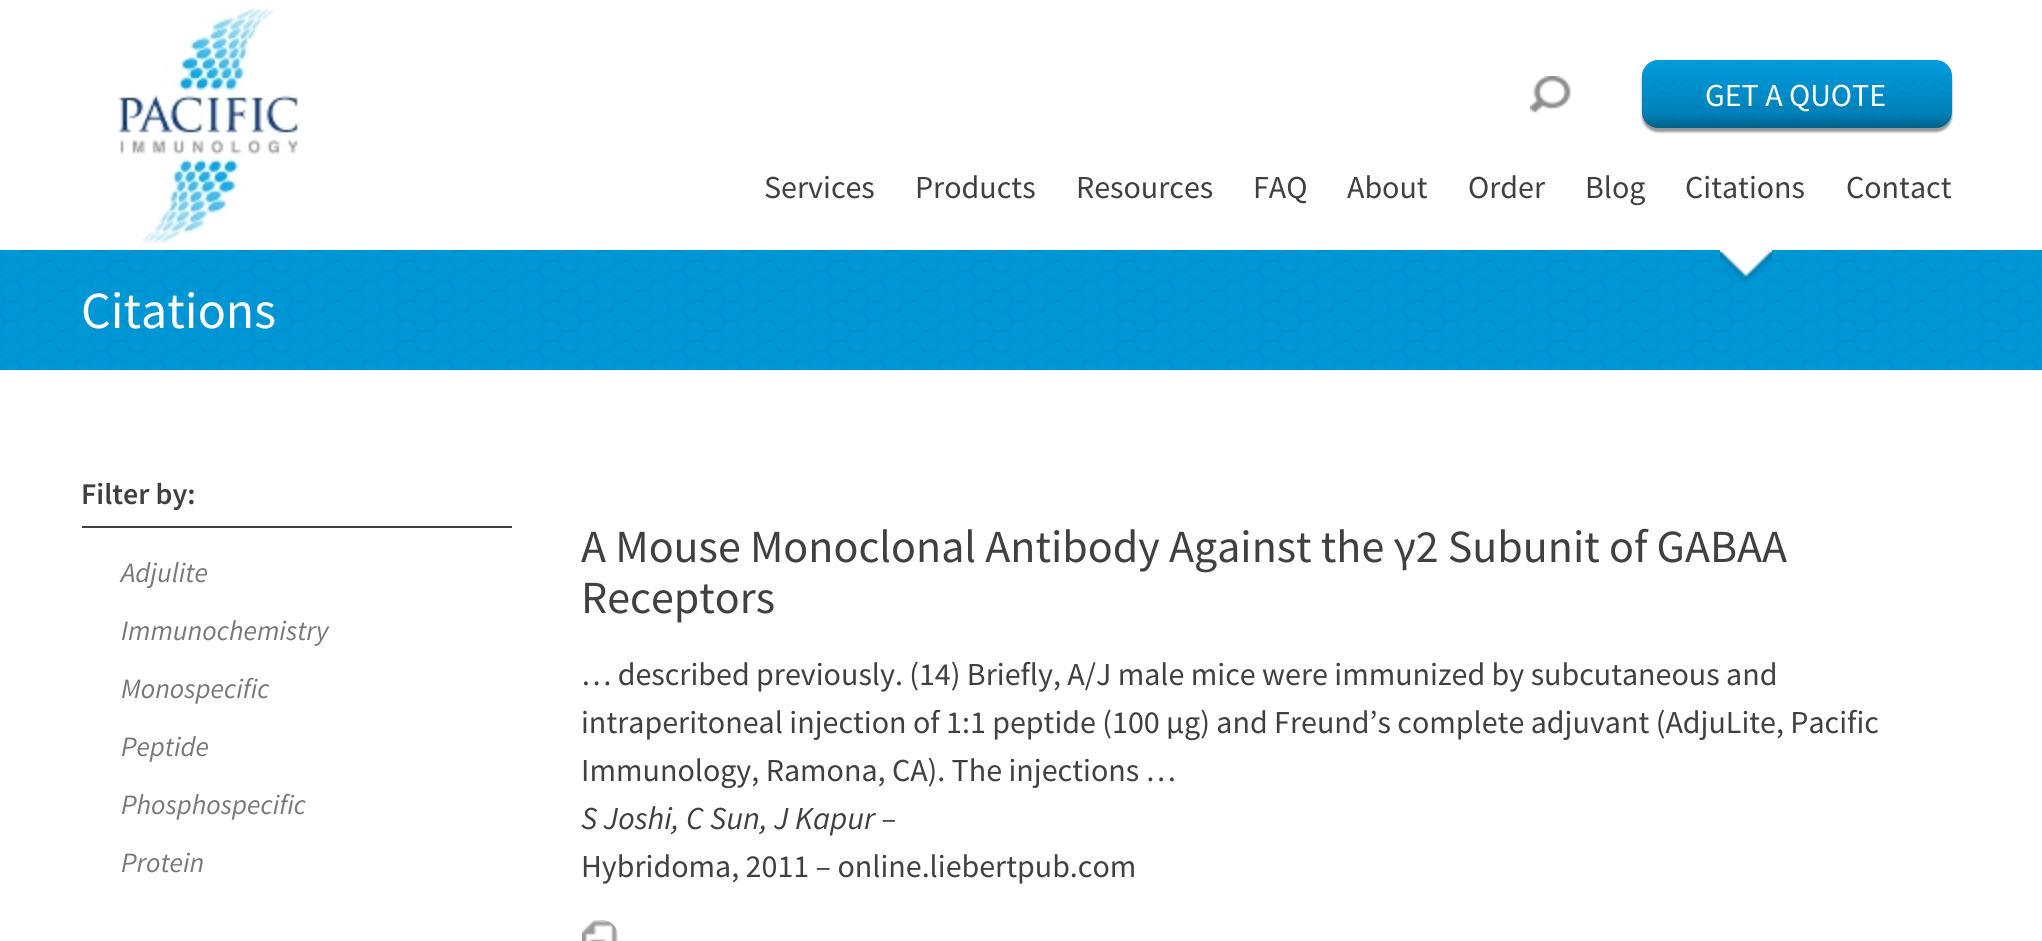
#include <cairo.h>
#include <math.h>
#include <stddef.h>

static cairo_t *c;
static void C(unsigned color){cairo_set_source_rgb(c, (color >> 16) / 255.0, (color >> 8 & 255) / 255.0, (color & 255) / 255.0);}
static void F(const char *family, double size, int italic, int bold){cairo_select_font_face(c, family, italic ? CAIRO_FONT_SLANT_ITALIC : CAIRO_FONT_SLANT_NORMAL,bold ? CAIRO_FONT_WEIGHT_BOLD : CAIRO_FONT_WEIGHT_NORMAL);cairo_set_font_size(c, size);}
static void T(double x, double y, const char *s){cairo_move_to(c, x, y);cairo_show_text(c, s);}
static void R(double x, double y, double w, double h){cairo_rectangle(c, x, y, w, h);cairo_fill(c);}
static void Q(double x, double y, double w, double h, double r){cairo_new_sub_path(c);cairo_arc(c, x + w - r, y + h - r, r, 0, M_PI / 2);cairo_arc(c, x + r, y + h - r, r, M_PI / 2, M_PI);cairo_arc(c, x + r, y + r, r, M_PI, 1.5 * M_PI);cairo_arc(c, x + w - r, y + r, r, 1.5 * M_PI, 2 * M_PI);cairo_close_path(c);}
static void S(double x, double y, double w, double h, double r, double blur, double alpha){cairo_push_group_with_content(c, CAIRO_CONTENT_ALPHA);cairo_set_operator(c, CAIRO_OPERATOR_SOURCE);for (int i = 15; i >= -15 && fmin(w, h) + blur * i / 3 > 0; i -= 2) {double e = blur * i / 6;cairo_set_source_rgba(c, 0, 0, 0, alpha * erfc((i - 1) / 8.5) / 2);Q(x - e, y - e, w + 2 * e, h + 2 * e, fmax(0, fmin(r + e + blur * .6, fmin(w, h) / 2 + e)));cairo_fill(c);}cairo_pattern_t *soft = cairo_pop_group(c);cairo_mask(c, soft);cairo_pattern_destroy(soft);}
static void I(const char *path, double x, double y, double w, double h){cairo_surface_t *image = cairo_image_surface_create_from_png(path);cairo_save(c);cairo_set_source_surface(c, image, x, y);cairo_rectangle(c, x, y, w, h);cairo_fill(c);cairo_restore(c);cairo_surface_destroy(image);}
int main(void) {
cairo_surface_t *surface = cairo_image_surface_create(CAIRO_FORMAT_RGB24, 2042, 941);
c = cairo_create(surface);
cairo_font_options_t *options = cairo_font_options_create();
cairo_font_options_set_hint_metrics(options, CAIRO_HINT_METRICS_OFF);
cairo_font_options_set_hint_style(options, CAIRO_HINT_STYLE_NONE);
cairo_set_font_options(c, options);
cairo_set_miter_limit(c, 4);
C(0xffffff);
cairo_paint(c);
I("1.png",118,7,182,236);
I("2.png",1530,76,41,37);
C(0x999999);
S(1642,64,310,68,16,1,1);
I("3.png",1642,60,310,68);
F("Source Sans Pro",32,0,0);
C(0xffffff);
T(1705,106,"GET A QUOTE");
C(0x404040);
T(764,198,"Services");
T(915,198,"Products");
T(1076,198,"Resources");
T(1253,198,"FAQ");
T(1347,198,"About");
T(1468,198,"Order");
T(1585,198,"Blog");
I("5.png",0,250,2042,120);
I("4.png",1720,250,52,32);
T(1685,198,"Citations");
T(1846,198,"Contact");
F("Source Sans Pro",52,0,0);
C(0xffffff);
T(81,328,"Citations");
C(0x404040);
R(82,526,430,2);
F("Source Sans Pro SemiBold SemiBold",30,0,0);
T(81,504,"Filter by:");
F("Source Sans Pro",28,1,0);
C(0x787878);
T(121,582,"Adjulite");
T(121,640,"Immunochemistry");
T(121,698,"Monospecific");
T(121,756,"Peptide");
T(121,814,"Phosphospecific");
T(121,872,"Protein");
F("Source Sans Pro",46,0,0);
C(0x404040);
T(581,562,"A Mouse Monoclonal Antibody Against the γ2 Subunit of GABAA");
T(581,613,"Receptors");
F("Source Sans Pro",32,0,0);
T(581,685,"… described previously. (14) Briefly, A/J male mice were immunized by subcutaneous and");
T(581,733,"intraperitoneal injection of 1:1 peptide (100 μg) and Freund’s complete adjuvant (AdjuLite, Pacific");
T(581,781,"Immunology, Ramona, CA). The injections …");
F("Source Sans Pro",32,1,0);
T(581,829,"S Joshi, C Sun, J Kapur –");
F("Source Sans Pro",32,0,0);
T(581,877,"Hybridoma, 2011 – online.liebertpub.com");
C(0xeeeeee);
Q(582,920,36,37,16);
cairo_fill(c);
I("6.png",582,920,36,21);
cairo_surface_write_to_png(surface, "o.png");
cairo_font_options_destroy(options);
cairo_destroy(c);
cairo_surface_destroy(surface);
return 0;
}
